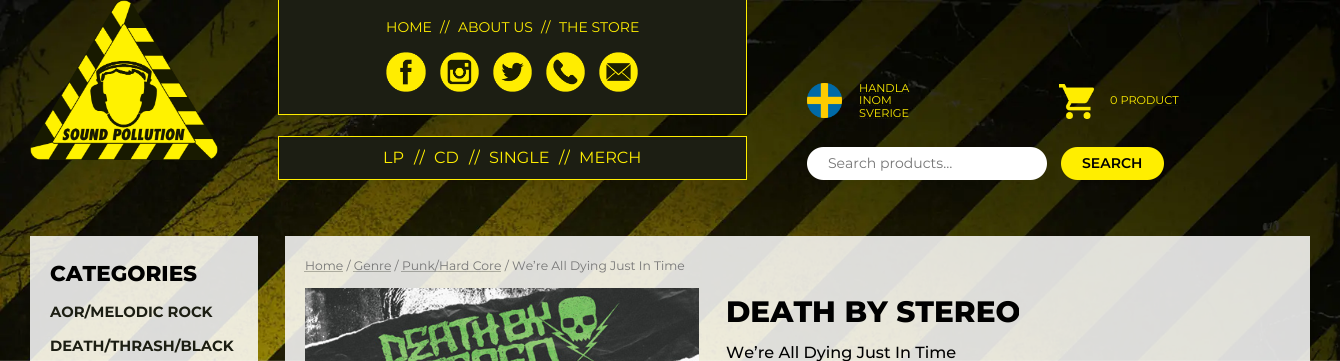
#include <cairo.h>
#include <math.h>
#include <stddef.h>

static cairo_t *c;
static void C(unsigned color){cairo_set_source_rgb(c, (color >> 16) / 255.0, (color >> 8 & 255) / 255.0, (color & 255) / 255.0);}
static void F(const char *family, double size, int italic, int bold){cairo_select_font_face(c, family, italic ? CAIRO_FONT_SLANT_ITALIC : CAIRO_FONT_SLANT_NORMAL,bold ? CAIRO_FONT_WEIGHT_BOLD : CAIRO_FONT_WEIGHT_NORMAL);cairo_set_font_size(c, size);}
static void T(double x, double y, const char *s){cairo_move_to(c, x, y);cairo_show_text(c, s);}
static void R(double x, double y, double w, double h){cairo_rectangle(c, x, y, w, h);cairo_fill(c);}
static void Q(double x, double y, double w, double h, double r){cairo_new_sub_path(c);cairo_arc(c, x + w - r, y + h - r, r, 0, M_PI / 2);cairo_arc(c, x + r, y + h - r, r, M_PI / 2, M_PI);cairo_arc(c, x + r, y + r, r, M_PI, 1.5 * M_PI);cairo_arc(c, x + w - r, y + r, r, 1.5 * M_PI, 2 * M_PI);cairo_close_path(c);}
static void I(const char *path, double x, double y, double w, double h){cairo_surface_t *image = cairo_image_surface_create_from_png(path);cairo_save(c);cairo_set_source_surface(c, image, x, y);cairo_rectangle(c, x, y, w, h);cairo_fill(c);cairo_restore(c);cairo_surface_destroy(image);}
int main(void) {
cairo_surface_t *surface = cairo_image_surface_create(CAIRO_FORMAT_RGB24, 1340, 361);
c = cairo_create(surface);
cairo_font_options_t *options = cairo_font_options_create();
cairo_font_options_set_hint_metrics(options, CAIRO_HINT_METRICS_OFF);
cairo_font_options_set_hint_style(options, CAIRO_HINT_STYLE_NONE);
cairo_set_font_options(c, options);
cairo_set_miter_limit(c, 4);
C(0xffffff);
cairo_paint(c);
I("1.png",0,0,1340,361);
I("2.png",30,0,188,160);
C(0x1c1e13);
R(279,0,467,114);
C(0xffee00);
R(746,0,1,115);
R(278,114,469,1);
R(278,0,1,115);
F("Montserrat",14,0,0);
T(386,32,"HOME");
T(440,32,"//");
T(458,32,"ABOUT US");
T(541,32,"//");
T(559,32,"THE STORE");
I("3.png",386,52,40,40);
I("4.png",440,52,39,40);
I("5.png",493,52,39,40);
I("6.png",546,52,39,40);
I("7.png",599,52,39,40);
C(0x1c1e13);
cairo_rectangle(c,278.5,136.5,468,43);
cairo_fill_preserve(c);
C(0xffee00);
cairo_set_line_width(c,1);
cairo_stroke(c);
F("Montserrat",16.1,0,0);
T(383,163,"LP");
T(414,163,"//");
T(434,163,"CD");
T(469,163,"//");
T(489,163,"SINGLE");
T(559,163,"//");
T(579,163,"MERCH");
I("8.png",807,83,35,35);
F("Montserrat",11.25,0,0);
T(859,92,"HANDLA");
cairo_new_path(c);
cairo_move_to(c,859,93.5);
cairo_line_to(c,909,93.5);
cairo_set_source_rgba(c,0.11,0.118,0.075,0.6);
cairo_set_dash(c,(double[]){1,1},2,0);
cairo_stroke(c);
C(0xffee00);
T(859,104,"INOM");
cairo_new_path(c);
cairo_move_to(c,859,105.5);
cairo_line_to(c,891.5,105.5);
cairo_set_source_rgba(c,0.11,0.118,0.075,0.6);
cairo_stroke(c);
C(0xffee00);
T(859,117,"SVERIGE");
cairo_new_path(c);
cairo_move_to(c,859,118.5);
cairo_line_to(c,909,118.5);
cairo_set_source_rgba(c,0.11,0.118,0.075,0.6);
cairo_stroke(c);
I("9.png",1059,84,35,35);
C(0xffee00);
T(1110,104,"0 PRODUCT");
cairo_new_path(c);
cairo_move_to(c,1110.5,105.5);
cairo_line_to(c,1120.5,105.5);
cairo_set_source_rgba(c,0.11,0.118,0.075,0.6);
cairo_stroke(c);
cairo_new_path(c);
cairo_move_to(c,1120.5,105.5);
cairo_line_to(c,1178.5,105.5);
cairo_stroke(c);
C(0xffffff);
Q(807,147,240,33,16.5);
cairo_fill(c);
F("Montserrat",14,0,0);
C(0x757575);
T(828,168,"Search products…");
C(0xffee00);
Q(1061,147,103,33,16.5);
cairo_fill(c);
F("Montserrat SemiBold",14,0,0);
C(0x000000);
T(1082,168,"SEARCH");
cairo_set_source_rgba(c,1,1,1,0.85);
R(30,236,228,125);
F("Montserrat ExtraBold",21.5,0,0);
C(0x000000);
T(50,281,"CATEGORIES");
F("Montserrat",14.75,0,1);
C(0x1c1e13);
T(50,317,"AOR/MELODIC ROCK");
T(50,351,"DEATH/THRASH/BLACK");
cairo_set_source_rgba(c,1,1,1,0.85);
R(285,236,1025,125);
cairo_new_path(c);
cairo_move_to(c,304.5,271.5);
cairo_line_to(c,343,271.5);
cairo_set_source_rgba(c,0.11,0.118,0.075,0.6);
cairo_stroke(c);
F("Montserrat",12.3,0,0);
C(0x757575);
T(305,270,"Home / Genre /");
cairo_new_path(c);
cairo_move_to(c,401.5,271.5);
cairo_line_to(c,501.5,271.5);
cairo_set_source_rgba(c,0.11,0.118,0.075,0.6);
cairo_stroke(c);
C(0x757575);
T(402,270,"Punk/Hard Core / We’re All Dying Just In Time");
cairo_new_path(c);
cairo_move_to(c,353.5,271.5);
cairo_line_to(c,391,271.5);
cairo_set_source_rgba(c,0.11,0.118,0.075,0.6);
cairo_stroke(c);
I("10.png",305,288,394,73);
F("Montserrat ExtraBold",29.5,0,0);
C(0x000000);
T(726,322,"DEATH BY STEREO");
F("Montserrat Medium",16.1,0,0);
T(726,358,"We’re All Dying Just In Time");
cairo_surface_write_to_png(surface, "o.png");
cairo_font_options_destroy(options);
cairo_destroy(c);
cairo_surface_destroy(surface);
return 0;
}
